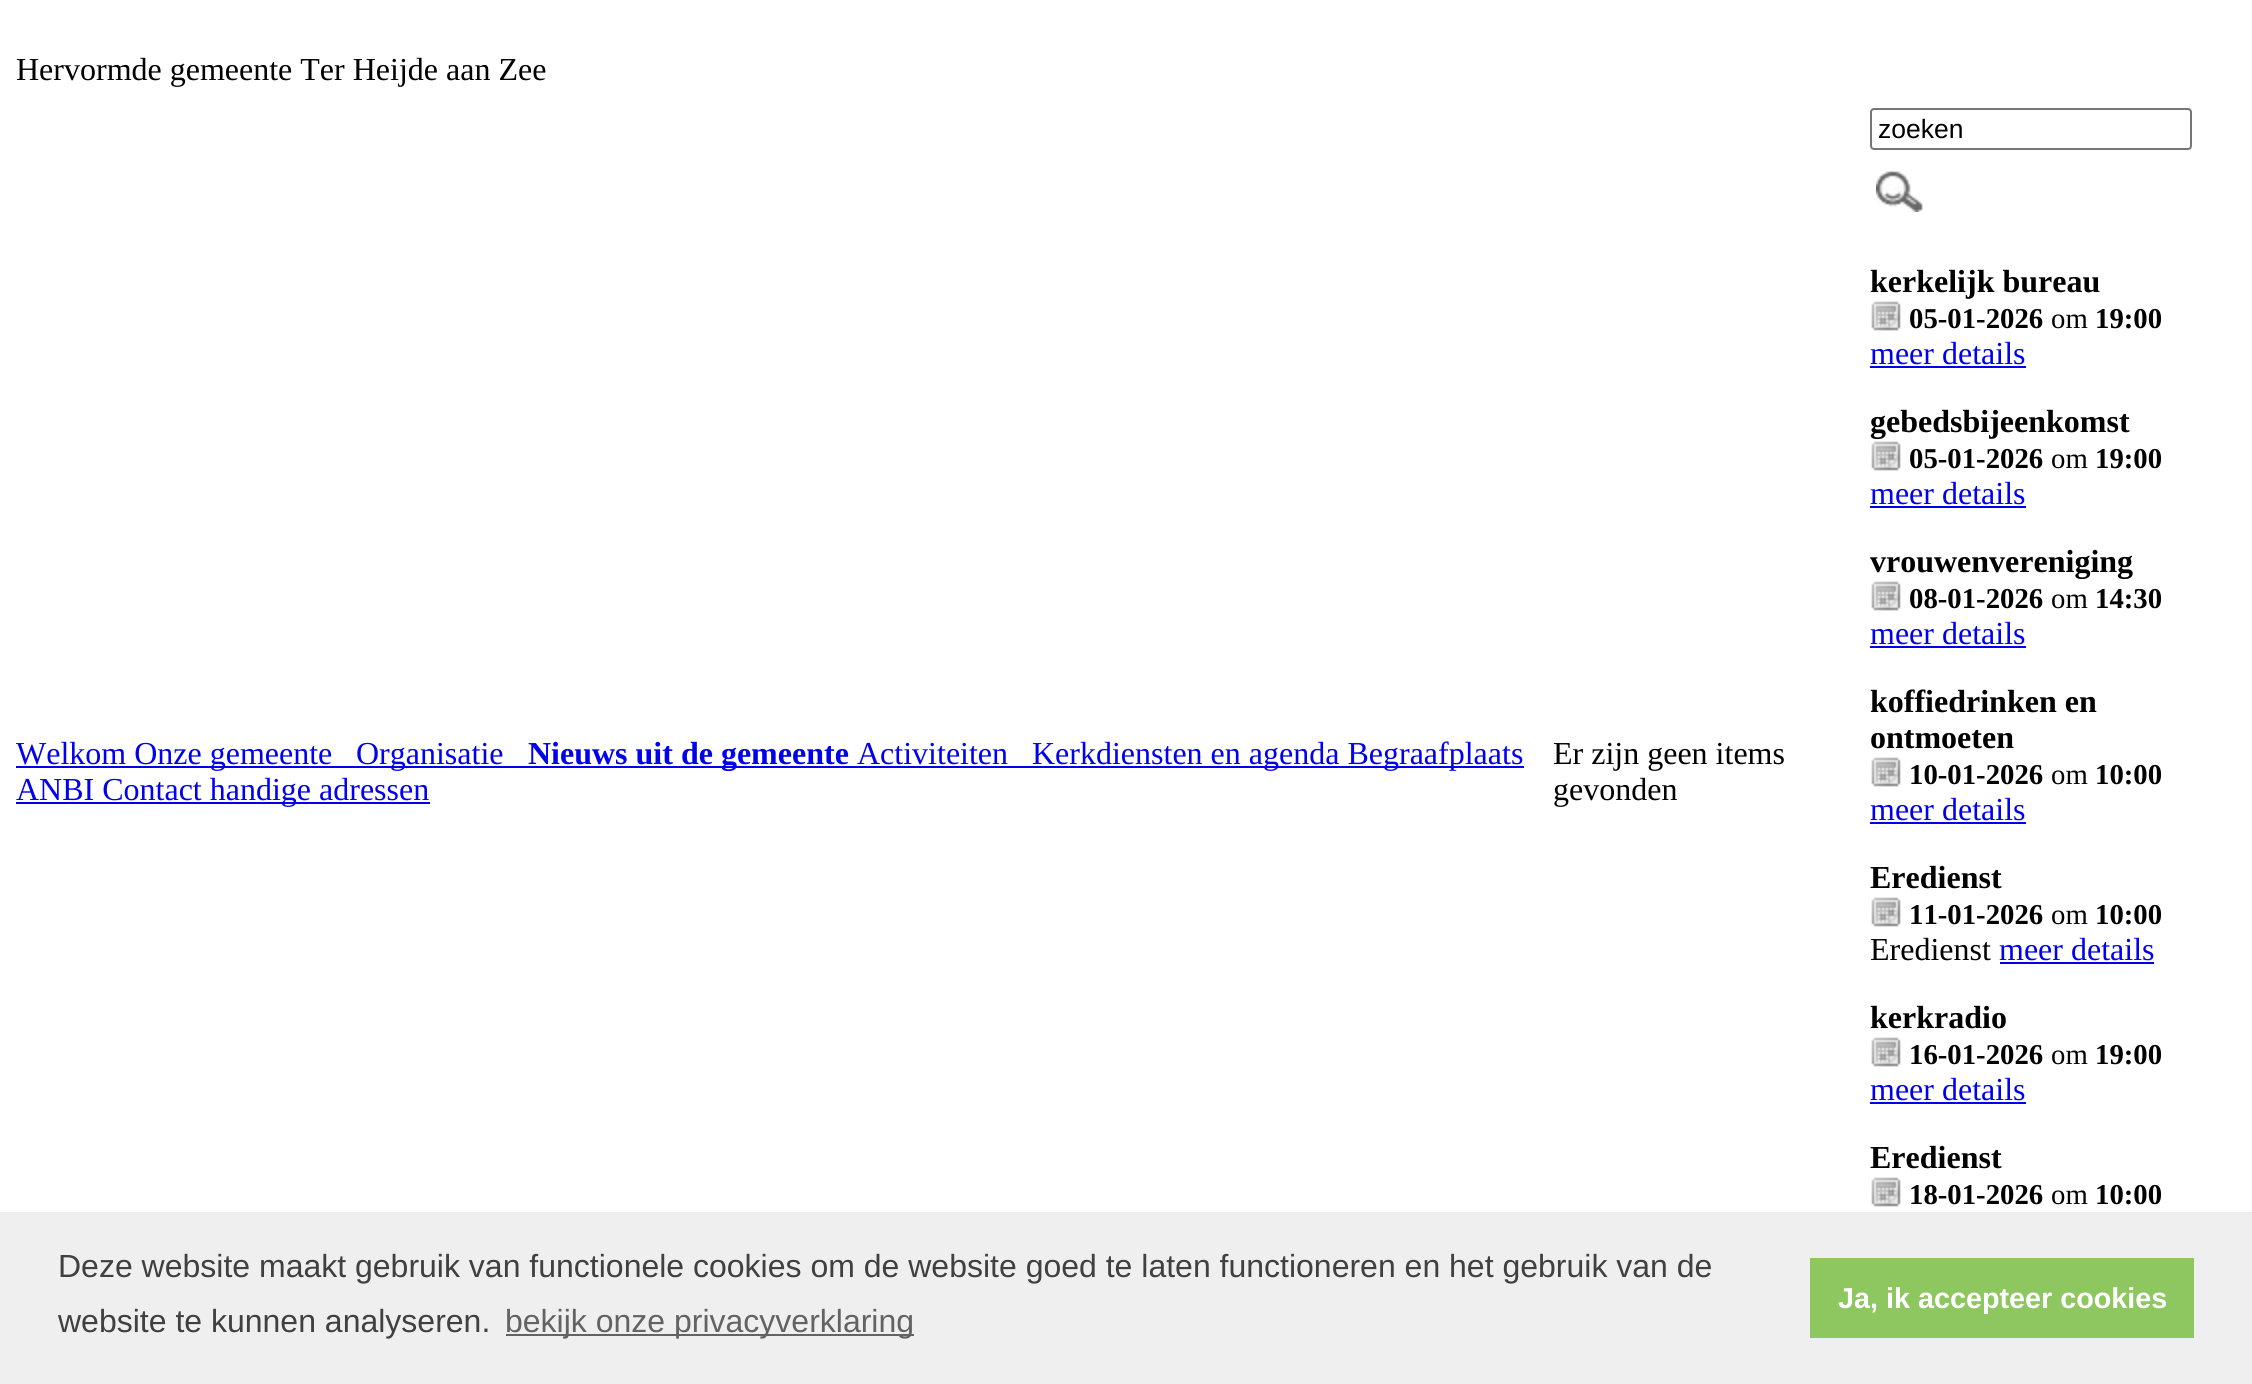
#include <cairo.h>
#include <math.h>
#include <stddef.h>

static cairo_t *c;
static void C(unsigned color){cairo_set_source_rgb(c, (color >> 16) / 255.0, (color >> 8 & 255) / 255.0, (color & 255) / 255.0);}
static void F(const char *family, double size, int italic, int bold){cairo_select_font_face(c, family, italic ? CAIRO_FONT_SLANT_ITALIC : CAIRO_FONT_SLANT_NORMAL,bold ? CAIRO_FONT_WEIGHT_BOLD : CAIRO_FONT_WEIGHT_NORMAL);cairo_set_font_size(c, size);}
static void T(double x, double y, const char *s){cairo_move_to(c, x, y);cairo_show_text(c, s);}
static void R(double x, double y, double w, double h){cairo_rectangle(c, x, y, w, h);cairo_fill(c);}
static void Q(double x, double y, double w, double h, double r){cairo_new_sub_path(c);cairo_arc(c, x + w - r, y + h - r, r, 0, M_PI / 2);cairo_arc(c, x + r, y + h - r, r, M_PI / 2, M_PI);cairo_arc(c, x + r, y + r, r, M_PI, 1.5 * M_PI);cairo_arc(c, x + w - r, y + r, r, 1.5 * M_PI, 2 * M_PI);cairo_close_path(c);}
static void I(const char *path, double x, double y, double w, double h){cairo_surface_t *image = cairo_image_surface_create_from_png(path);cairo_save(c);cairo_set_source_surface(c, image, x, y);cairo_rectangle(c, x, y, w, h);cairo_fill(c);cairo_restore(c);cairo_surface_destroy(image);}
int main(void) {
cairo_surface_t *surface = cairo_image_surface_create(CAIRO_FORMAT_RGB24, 2252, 1384);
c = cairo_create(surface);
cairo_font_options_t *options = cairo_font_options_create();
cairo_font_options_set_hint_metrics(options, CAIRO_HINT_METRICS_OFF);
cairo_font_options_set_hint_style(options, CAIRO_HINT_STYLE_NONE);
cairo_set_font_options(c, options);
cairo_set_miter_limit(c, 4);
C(0xffffff);
cairo_paint(c);
F("Liberation Serif",32,0,0);
C(0x000000);
T(16,80,"Hervormde gemeente Ter Heijde aan Zee");
C(0x0000ee);
R(16,766,1508,2);
T(16,764,"Welkom Onze gemeente");
T(356,764,"Organisatie");
F("Liberation Serif",32,0,1);
T(528,764,"Nieuws uit de gemeente");
F("Liberation Serif",32,0,0);
T(857,764,"Activiteiten");
T(1032,764,"Kerkdiensten en agenda Begraafplaats");
R(16,802,414,2);
T(16,800,"ANBI Contact handige adressen");
C(0x000000);
T(1553,764,"Er zijn geen items");
T(1553,800,"gevonden");
Q(1871,109,320,40,3);
C(0x767676);
cairo_stroke(c);
F("Liberation Sans",26.5,0,0);
C(0x000000);
T(1878,138,"zoeken");
I("1.png",1876,170,47,42);
F("Liberation Serif",32,0,1);
T(1870,292,"kerkelijk bureau");
I("2.png",1871,301,30,30);
F("Liberation Serif",28.75,0,1);
T(1909,328,"05-01-2026");
F("Liberation Serif",28.75,0,0);
T(2051,328,"om");
F("Liberation Serif",28.75,0,1);
T(2095,328,"19:00");
F("Liberation Serif",32,0,0);
C(0x0000ee);
T(1870,364,"meer details");
R(1870,366,156,2);
F("Liberation Serif",32,0,1);
C(0x000000);
T(1870,432,"gebedsbijeenkomst");
I("2.png",1871,441,30,30);
F("Liberation Serif",28.75,0,1);
T(1909,468,"05-01-2026");
F("Liberation Serif",28.75,0,0);
T(2051,468,"om");
F("Liberation Serif",28.75,0,1);
T(2095,468,"19:00");
F("Liberation Serif",32,0,0);
C(0x0000ee);
T(1870,504,"meer details");
R(1870,506,156,2);
F("Liberation Serif",32,0,1);
C(0x000000);
T(1870,572,"vrouwenvereniging");
I("2.png",1871,581,30,30);
F("Liberation Serif",28.75,0,1);
T(1909,608,"08-01-2026");
F("Liberation Serif",28.75,0,0);
T(2051,608,"om");
F("Liberation Serif",28.75,0,1);
T(2095,608,"14:30");
F("Liberation Serif",32,0,0);
C(0x0000ee);
T(1870,644,"meer details");
R(1870,646,156,2);
F("Liberation Serif",32,0,1);
C(0x000000);
T(1870,712,"koffiedrinken en");
T(1870,748,"ontmoeten");
I("2.png",1871,757,30,30);
F("Liberation Serif",28.75,0,1);
T(1909,784,"10-01-2026");
F("Liberation Serif",28.75,0,0);
T(2051,784,"om");
F("Liberation Serif",28.75,0,1);
T(2095,784,"10:00");
F("Liberation Serif",32,0,0);
C(0x0000ee);
T(1870,820,"meer details");
R(1870,822,156,2);
F("Liberation Serif",32,0,1);
C(0x000000);
T(1870,888,"Eredienst");
I("2.png",1871,897,30,30);
F("Liberation Serif",28.75,0,1);
T(1909,924,"11-01-2026");
F("Liberation Serif",28.75,0,0);
T(2051,924,"om");
F("Liberation Serif",28.75,0,1);
T(2095,924,"10:00");
F("Liberation Serif",32,0,0);
T(1870,960,"Eredienst");
C(0x0000ee);
T(1999,960,"meer details");
R(2000,962,154,2);
F("Liberation Serif",32,0,1);
C(0x000000);
T(1870,1028,"kerkradio");
I("2.png",1871,1037,30,30);
F("Liberation Serif",28.75,0,1);
T(1909,1064,"16-01-2026");
F("Liberation Serif",28.75,0,0);
T(2051,1064,"om");
F("Liberation Serif",28.75,0,1);
T(2095,1064,"19:00");
F("Liberation Serif",32,0,0);
C(0x0000ee);
T(1870,1100,"meer details");
R(1870,1102,156,2);
F("Liberation Serif",32,0,1);
C(0x000000);
T(1870,1168,"Eredienst");
I("2.png",1871,1177,30,30);
F("Liberation Serif",28.75,0,1);
T(1909,1204,"18-01-2026");
F("Liberation Serif",28.75,0,0);
T(2051,1204,"om");
F("Liberation Serif",28.75,0,1);
T(2095,1204,"10:00");
C(0xefefef);
R(0,1212,2252,172);
F("Liberation Sans",32,0,0);
C(0x404040);
T(58,1277,"Deze website maakt gebruik van functionele cookies om de website goed te laten functioneren en het gebruik van de");
T(58,1332,"website te kunnen analyseren.");
C(0x636363);
R(506,1334,408,2);
T(505,1332,"bekijk onze privacyverklaring");
C(0x8ec760);
R(1810,1258,384,80);
F("Liberation Sans",28.75,0,1);
C(0xffffff);
T(1838,1308,"Ja, ik accepteer cookies");
cairo_surface_write_to_png(surface, "o.png");
cairo_font_options_destroy(options);
cairo_destroy(c);
cairo_surface_destroy(surface);
return 0;
}
